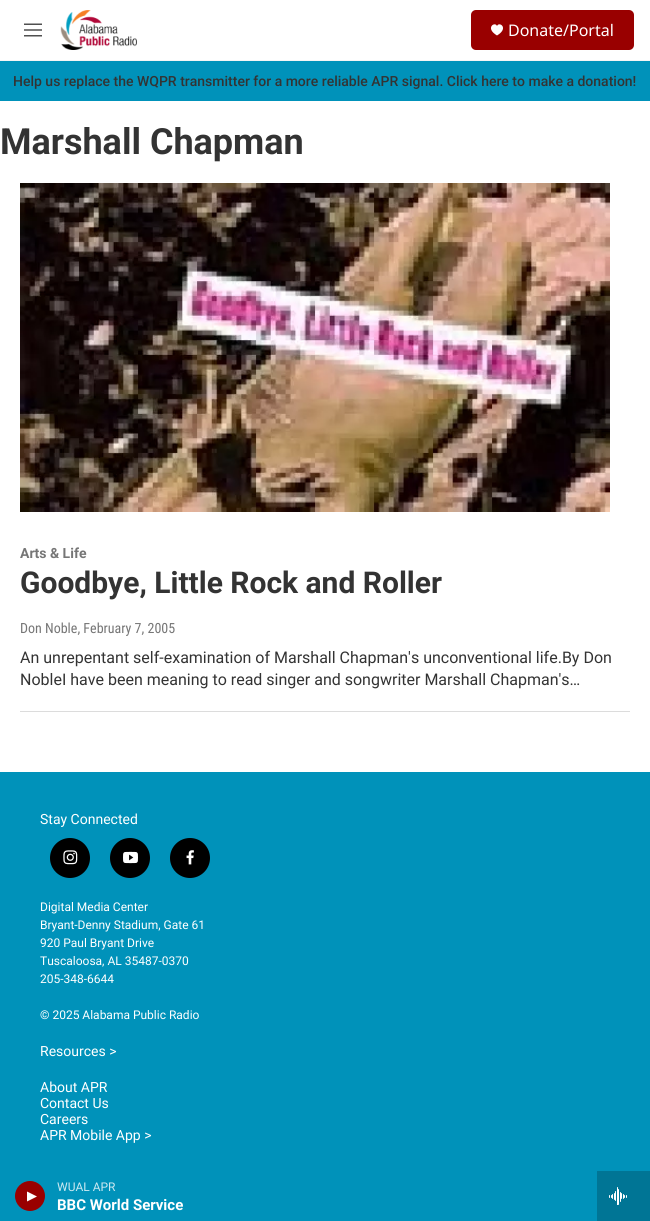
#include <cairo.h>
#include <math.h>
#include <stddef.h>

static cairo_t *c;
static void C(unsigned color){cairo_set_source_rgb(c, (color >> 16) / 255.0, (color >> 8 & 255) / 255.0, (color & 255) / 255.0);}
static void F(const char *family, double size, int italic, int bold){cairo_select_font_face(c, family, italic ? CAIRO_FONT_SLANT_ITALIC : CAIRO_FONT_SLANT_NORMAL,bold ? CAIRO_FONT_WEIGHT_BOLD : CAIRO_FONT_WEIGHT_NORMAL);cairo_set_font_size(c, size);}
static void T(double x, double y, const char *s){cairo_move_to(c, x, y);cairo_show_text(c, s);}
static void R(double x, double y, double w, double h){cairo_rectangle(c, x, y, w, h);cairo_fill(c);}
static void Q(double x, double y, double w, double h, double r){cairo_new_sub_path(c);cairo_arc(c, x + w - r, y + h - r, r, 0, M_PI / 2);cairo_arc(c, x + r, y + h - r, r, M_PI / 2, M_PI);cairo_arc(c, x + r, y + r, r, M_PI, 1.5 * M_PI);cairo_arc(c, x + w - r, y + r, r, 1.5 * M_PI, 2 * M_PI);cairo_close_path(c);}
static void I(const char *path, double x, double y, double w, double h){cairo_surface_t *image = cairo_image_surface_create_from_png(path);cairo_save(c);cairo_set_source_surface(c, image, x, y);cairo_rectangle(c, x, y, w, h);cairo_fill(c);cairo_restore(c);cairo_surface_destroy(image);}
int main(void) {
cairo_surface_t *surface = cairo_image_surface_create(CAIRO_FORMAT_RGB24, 650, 1221);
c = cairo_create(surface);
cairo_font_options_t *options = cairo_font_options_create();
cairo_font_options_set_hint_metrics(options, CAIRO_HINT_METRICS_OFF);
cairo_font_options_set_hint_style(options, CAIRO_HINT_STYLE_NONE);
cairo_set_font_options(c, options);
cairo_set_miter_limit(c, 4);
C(0xffffff);
cairo_paint(c);
C(0xf5f5f5);
R(0,60,650,1);
I("1.png",24,23,18,14);
I("2.png",60,10,77,40);
C(0x990000);
Q(471,10,163,40,5);
cairo_fill(c);
C(0xffffff);
cairo_new_path(c);
cairo_move_to(c,497,26);
cairo_curve_to(c,495,21,484.5,28,497,35.5);
cairo_curve_to(c,509.5,28,499,21,497,26);
cairo_close_path(c);
cairo_fill(c);
F("Noto Sans",16,0,0);
T(508,36,"Donate/Portal");
C(0x0092ba);
R(0,1171,597,50);
C(0x990000);
cairo_new_path(c);
cairo_arc(c,30,1196,15,0,2 * M_PI);
cairo_fill(c);
C(0xffffff);
cairo_new_path(c);
cairo_move_to(c,27,1191.5);
cairo_line_to(c,37,1196.5);
cairo_line_to(c,27,1201.5);
cairo_close_path(c);
cairo_fill(c);
F("Roboto",12,0,0);
C(0xcce9f1);
T(57,1191,"WUAL APR");
F("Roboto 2",15,0,1);
C(0xffffff);
T(57,1210,"BBC World Service");
C(0x007595);
R(597,1171,53,50);
I("3.png",609,1187,18,18);
C(0x0092ba);
R(0,61,650,40);
F("Roboto Medium",14,0,0);
C(0x333333);
T(13,86,"Help us replace the WQPR transmitter for a more reliable APR signal. Click here to make a donation!");
F("Roboto",36,0,1);
T(0,154,"Marshall Chapman");
C(0xdcdcdc);
R(20,711,610,1);
I("4.png",20,183,590,329);
F("Roboto",14,0,1);
C(0x767676);
T(20,558,"Arts & Life");
F("Roboto",30,0,1);
C(0x333333);
T(20,593,"Goodbye, Little Rock and Roller");
F("Roboto Condensed",14,0,0);
C(0x767676);
T(20,633,"Don Noble, February 7, 2005");
F("Roboto",16,0,0);
C(0x333333);
T(20,663,"An unrepentant self-examination of Marshall Chapman's unconventional life.By Don");
T(20,685,"NobleI have been meaning to read singer and songwriter Marshall Chapman's…");
C(0x0092ba);
R(0,772,650,399);
F("Roboto",14,0,0);
C(0xffffff);
T(40,824,"Stay Connected");
C(0x000000);
cairo_new_path(c);
cairo_arc(c,70,858,20,0,2 * M_PI);
cairo_fill(c);
I("5.png",63,850,15,15);
cairo_arc(c,130,858,20,0,2 * M_PI);
cairo_fill(c);
I("6.png",123,851,15,13);
cairo_arc(c,190,858,20,0,2 * M_PI);
cairo_fill(c);
I("7.png",186,850,8,15);
F("Roboto",12,0,0);
C(0xffffff);
T(40,911,"Digital Media Center");
T(40,929,"Bryant-Denny Stadium, Gate 61");
T(40,947,"920 Paul Bryant Drive");
T(40,965,"Tuscaloosa, AL 35487-0370");
T(40,983,"205-348-6644");
T(40,1019,"© 2025 Alabama Public Radio");
F("Roboto",14,0,0);
T(40,1056,"Resources >");
T(40,1092,"About APR");
T(40,1108,"Contact Us");
T(40,1124,"Careers");
T(40,1140,"APR Mobile App >");
cairo_surface_write_to_png(surface, "o.png");
cairo_font_options_destroy(options);
cairo_destroy(c);
cairo_surface_destroy(surface);
return 0;
}
